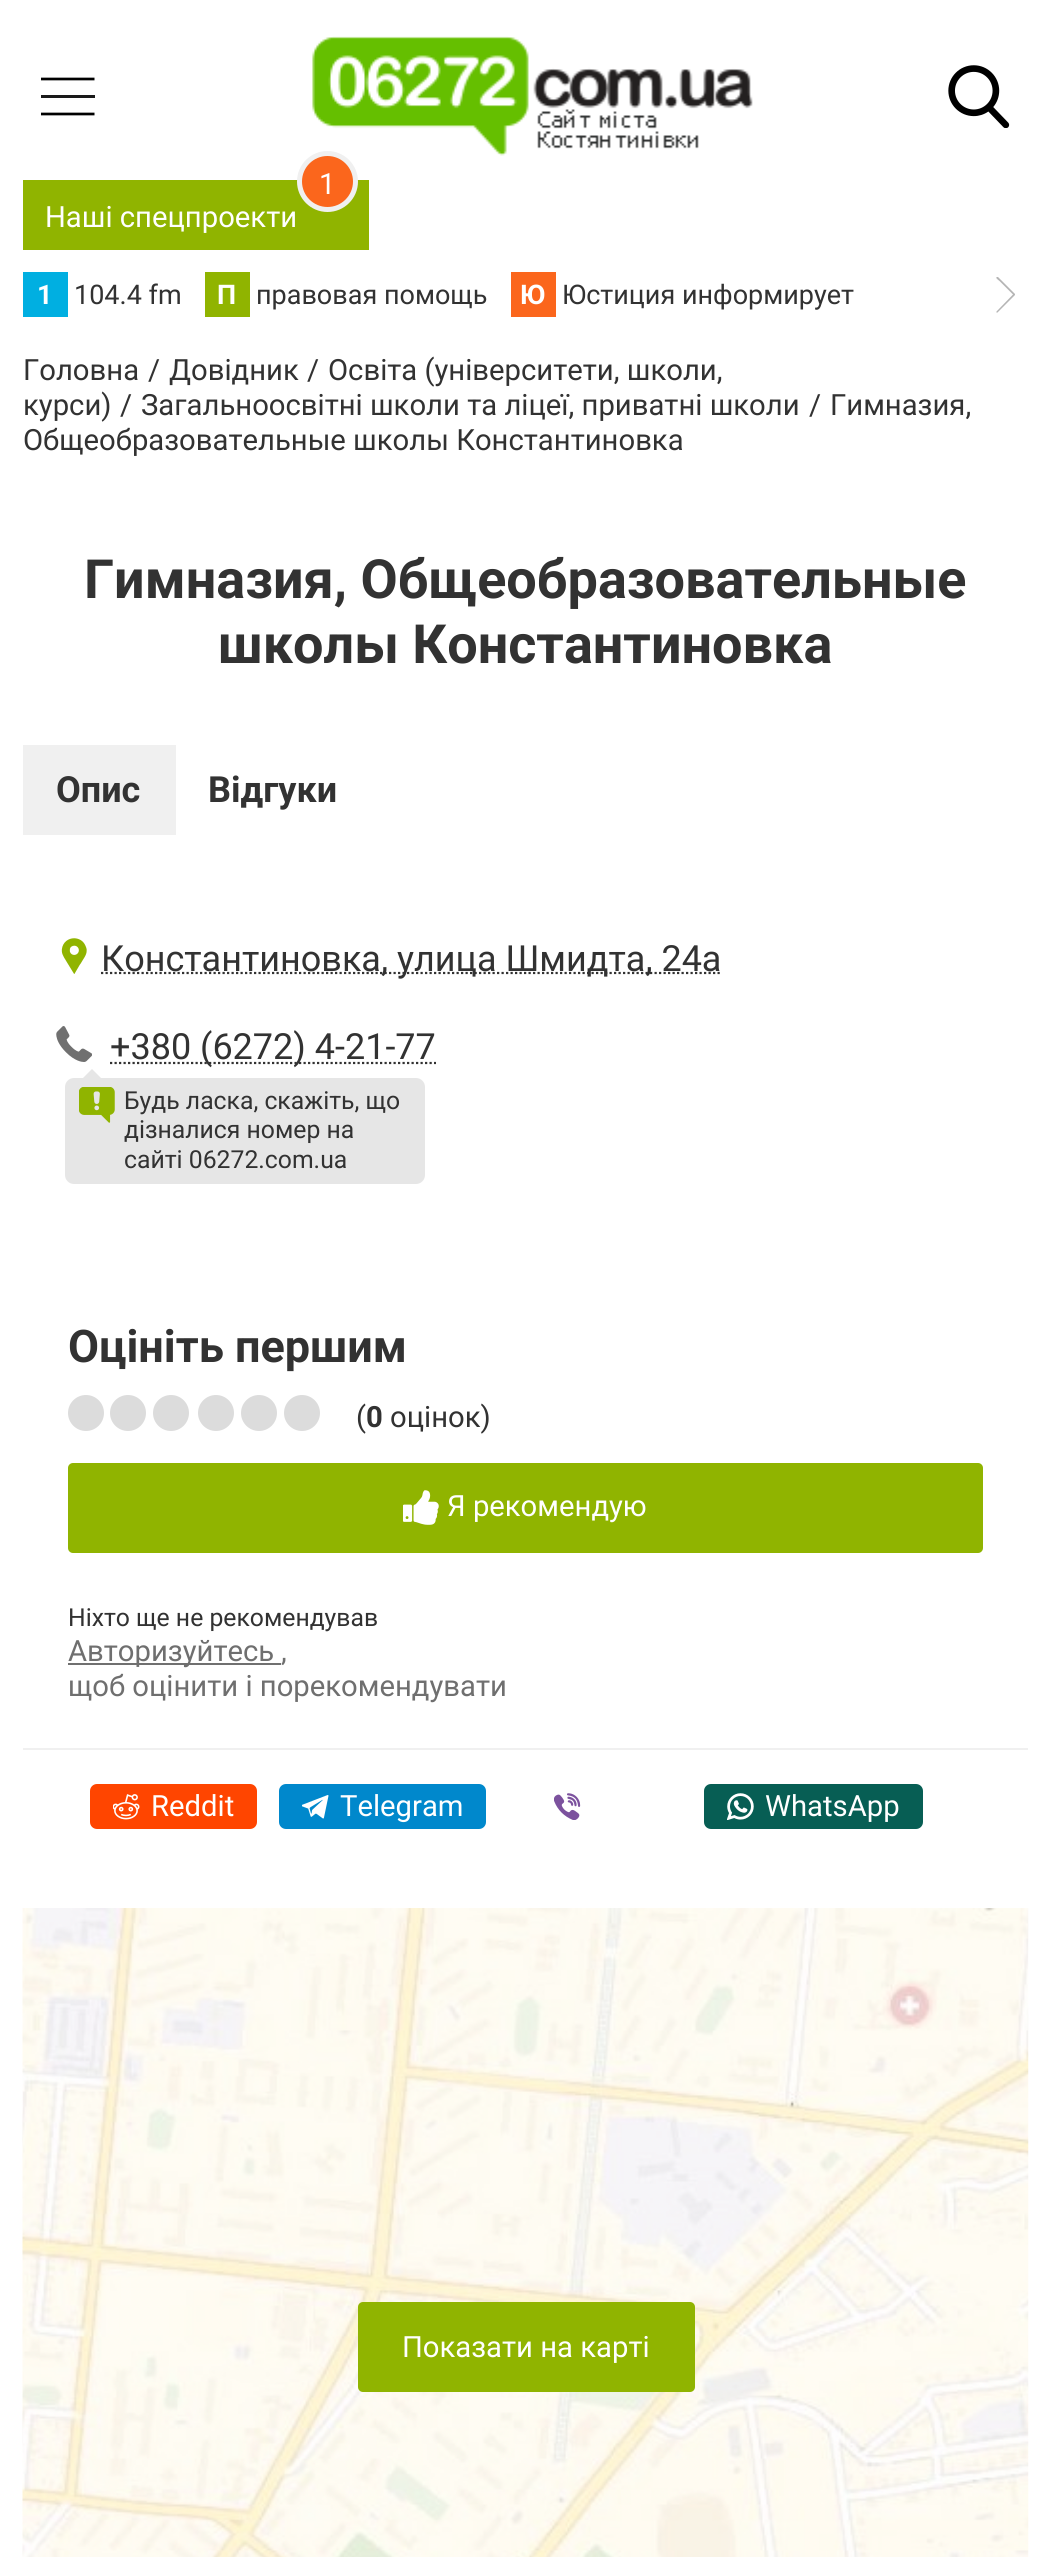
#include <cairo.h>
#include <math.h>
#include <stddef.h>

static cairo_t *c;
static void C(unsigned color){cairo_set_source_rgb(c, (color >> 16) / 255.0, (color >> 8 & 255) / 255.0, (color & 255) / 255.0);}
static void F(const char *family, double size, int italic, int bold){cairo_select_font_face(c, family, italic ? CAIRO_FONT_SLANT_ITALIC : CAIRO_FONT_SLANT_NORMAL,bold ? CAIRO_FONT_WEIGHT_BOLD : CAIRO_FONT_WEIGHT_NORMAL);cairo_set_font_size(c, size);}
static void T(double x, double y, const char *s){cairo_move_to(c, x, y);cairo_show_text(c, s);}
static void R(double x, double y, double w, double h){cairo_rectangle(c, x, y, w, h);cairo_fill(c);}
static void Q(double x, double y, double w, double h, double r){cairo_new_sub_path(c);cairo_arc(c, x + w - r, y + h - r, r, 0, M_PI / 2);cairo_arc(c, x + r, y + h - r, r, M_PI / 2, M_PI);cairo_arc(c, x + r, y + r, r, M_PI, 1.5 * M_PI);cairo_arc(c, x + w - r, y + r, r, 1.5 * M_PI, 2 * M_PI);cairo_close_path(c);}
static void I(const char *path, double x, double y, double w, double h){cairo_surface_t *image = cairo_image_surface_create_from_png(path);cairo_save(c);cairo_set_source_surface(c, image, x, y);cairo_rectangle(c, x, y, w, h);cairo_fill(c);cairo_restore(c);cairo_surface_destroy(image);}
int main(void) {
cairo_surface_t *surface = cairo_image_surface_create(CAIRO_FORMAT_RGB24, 1050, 2557);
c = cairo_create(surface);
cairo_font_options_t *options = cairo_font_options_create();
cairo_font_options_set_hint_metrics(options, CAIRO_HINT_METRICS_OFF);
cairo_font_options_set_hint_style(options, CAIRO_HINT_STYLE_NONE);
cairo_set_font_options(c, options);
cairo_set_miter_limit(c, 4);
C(0xffffff);
cairo_paint(c);
cairo_save(c);
cairo_rectangle(c,41,70,54,54);
cairo_clip(c);
cairo_new_path(c);
cairo_move_to(c,40.5,79);
cairo_line_to(c,94.5,79);
C(0x000000);
cairo_set_line_width(c,2.7);
cairo_stroke(c);
cairo_restore(c);
C(0x1a1a1a);
R(41,95,54,3);
cairo_save(c);
cairo_rectangle(c,41,70,54,54);
cairo_clip(c);
cairo_new_path(c);
cairo_move_to(c,40.5,114);
cairo_line_to(c,94.5,114);
C(0x000000);
cairo_set_line_width(c,2.7);
cairo_stroke(c);
cairo_restore(c);
I("1.png",312,36,441,120);
I("2.png",948,65,62,63);
C(0x90b400);
R(23,180,346,70);
C(0xfb661c);
cairo_arc(c,327.5,181.5,28,0,2 * M_PI);
cairo_fill_preserve(c);
C(0xf0f0f0);
cairo_set_line_width(c,5);
cairo_stroke(c);
F("Roboto",29.25,0,0);
C(0xffffff);
T(319,194,"1");
T(45,227,"Наші спецпроекти");
C(0x00afe1);
R(23,272,45,45);
F("Roboto",27,0,1);
C(0xffffff);
T(37,304,"1");
F("Roboto",27,0,0);
C(0x323232);
T(74,304,"104.4 fm");
C(0x90b400);
R(205,272,45,45);
F("Roboto",27,0,1);
C(0xffffff);
T(217,304,"П");
F("Roboto",27,0,0);
C(0x323232);
T(256,304,"правовая помощь");
C(0xfb661c);
R(511,272,45,45);
F("Roboto",27,0,1);
C(0xffffff);
T(520,304,"Ю");
F("Roboto",27,0,0);
C(0x323232);
T(562,304,"Юстиция информирует");
C(0xb5b5b5);
cairo_new_path(c);
cairo_move_to(c,1015,294);
cairo_line_to(c,998,277);
cairo_line_to(c,997,277);
cairo_curve_to(c,995,277.5,997.5,279.5,999.5,281);
cairo_line_to(c,1013,294.5);
cairo_line_to(c,996.5,311.5);
cairo_curve_to(c,996,312.5,997,313,997.5,312.5);
cairo_line_to(c,1015,295);
cairo_close_path(c);
cairo_fill(c);
F("Roboto",29.25,0,0);
C(0x323232);
T(23,380,"Головна");
T(148,380,"/");
T(169,380,"Довідник");
T(307,380,"/");
T(328,380,"Освіта (університети, школи,");
T(23,415,"курси)");
T(120,415,"/");
T(141,415,"Загальноосвітні школи та ліцеї, приватні школи");
T(809,415,"/");
T(830,415,"Гимназия,");
T(23,450,"Общеобразовательные школы Константиновка");
F("Roboto",54,0,1);
T(84,598,"Гимназия, Общеобразовательные");
T(218,663,"школы Константиновка");
C(0xf0f0f0);
R(23,745,153,90);
F("Roboto",36,0,1);
C(0x323232);
T(56,802,"Опис");
T(208,802,"Відгуки");
I("3.png",61,938,26,36);
cairo_new_path(c);
cairo_move_to(c,101,973);
cairo_line_to(c,721.5,973);
cairo_set_line_width(c,2.2);
cairo_set_dash(c,(double[]){2.25,2.25},2,0);
cairo_stroke(c);
F("Roboto",36,0,0);
T(101,971,"Константиновка, улица Шмидта, 24а");
I("4.png",56,1026,36,36);
cairo_new_path(c);
cairo_move_to(c,110,1063);
cairo_line_to(c,436,1063);
cairo_stroke(c);
T(110,1059,"+380 (6272) 4-21-77");
C(0xe6e6e6);
Q(65,1078,360,106,9);
cairo_fill(c);
cairo_new_path(c);
cairo_move_to(c,101,1078);
cairo_line_to(c,83,1078);
cairo_line_to(c,92,1069);
cairo_close_path(c);
cairo_fill(c);
I("5.png",79,1087,36,36);
F("Roboto",24.75,0,0);
C(0x323232);
T(124,1109,"Будь ласка, скажіть, що");
T(124,1138,"дізналися номер на");
T(124,1168,"сайті 06272.com.ua");
F("Roboto",45,0,1);
T(68,1362,"Оцініть першим");
C(0xdcdcdc);
cairo_new_path(c);
cairo_arc(c,86,1413,18,0,2 * M_PI);
cairo_fill(c);
cairo_arc(c,128,1413,18,0,2 * M_PI);
cairo_fill(c);
cairo_arc(c,171,1413,18,0,2 * M_PI);
cairo_fill(c);
cairo_arc(c,216,1413,18,0,2 * M_PI);
cairo_fill(c);
cairo_arc(c,259,1413,18,0,2 * M_PI);
cairo_fill(c);
cairo_arc(c,302,1413,18,0,2 * M_PI);
cairo_fill(c);
F("Roboto",29.25,0,0);
C(0x323232);
T(356,1427,"(");
F("Roboto",29.25,0,1);
T(366,1427,"0");
F("Roboto",29.25,0,0);
T(390,1427,"оцінок)");
C(0x90b400);
Q(68,1463,915,90,5);
cairo_fill(c);
I("6.png",403,1490,36,35);
C(0xffffff);
T(447,1516,"Я рекомендую");
F("Roboto",24.75,0,0);
C(0x323232);
T(68,1626,"Ніхто ще не рекомендував");
C(0x707070);
R(68,1663,213,2);
F("Roboto",29.25,0,0);
C(0x6f6f6f);
T(68,1661,"Авторизуйтесь");
T(281,1661,",");
T(68,1696,"щоб оцінити і порекомендувати");
C(0xf0f0f0);
R(23,1748,1005,2);
C(0xff4500);
Q(90,1784,167,45,7);
cairo_fill(c);
I("7.png",113,1794,27,26);
C(0xffffff);
T(151,1816,"Reddit");
C(0x0088cc);
Q(279,1784,207,45,7);
cairo_fill(c);
I("8.png",302,1795,27,24);
C(0xffffff);
T(340,1816,"Telegram");
I("9.png",554,1793,27,27);
C(0x075e54);
Q(704,1784,219,45,7);
cairo_fill(c);
I("10.png",727,1793,27,27);
C(0xffffff);
T(765,1816,"WhatsApp");
I("11.png",22,1908,1007,649);
C(0x90b400);
Q(358,2302,337,90,5);
cairo_fill(c);
C(0xffffff);
T(402,2357,"Показати на карті");
cairo_surface_write_to_png(surface, "o.png");
cairo_font_options_destroy(options);
cairo_destroy(c);
cairo_surface_destroy(surface);
return 0;
}
